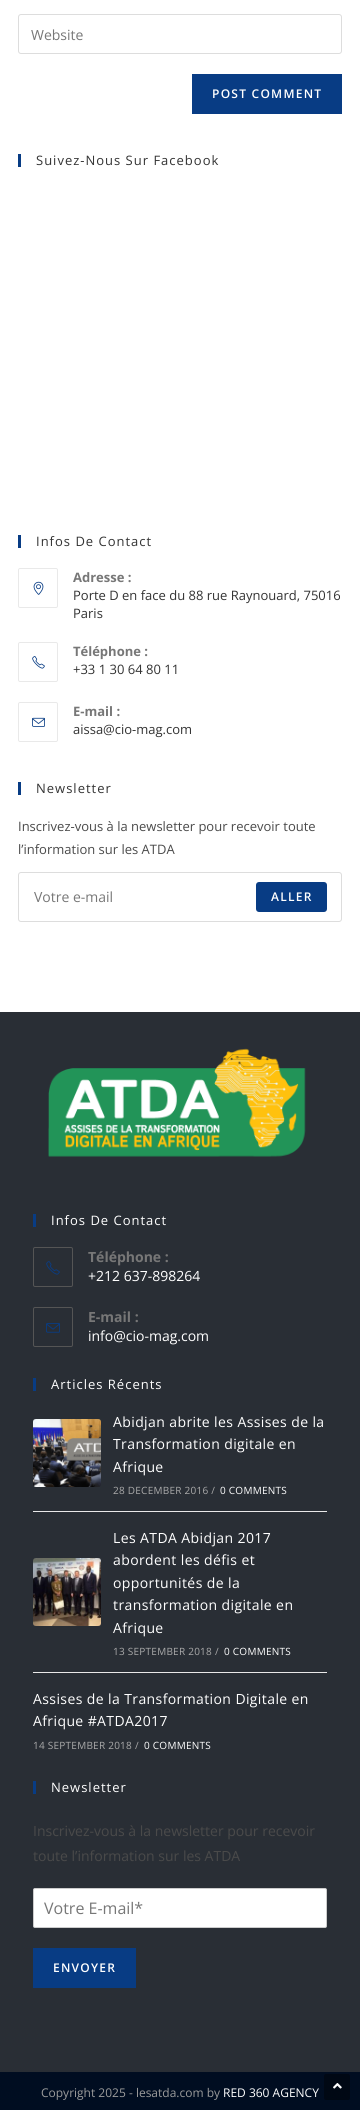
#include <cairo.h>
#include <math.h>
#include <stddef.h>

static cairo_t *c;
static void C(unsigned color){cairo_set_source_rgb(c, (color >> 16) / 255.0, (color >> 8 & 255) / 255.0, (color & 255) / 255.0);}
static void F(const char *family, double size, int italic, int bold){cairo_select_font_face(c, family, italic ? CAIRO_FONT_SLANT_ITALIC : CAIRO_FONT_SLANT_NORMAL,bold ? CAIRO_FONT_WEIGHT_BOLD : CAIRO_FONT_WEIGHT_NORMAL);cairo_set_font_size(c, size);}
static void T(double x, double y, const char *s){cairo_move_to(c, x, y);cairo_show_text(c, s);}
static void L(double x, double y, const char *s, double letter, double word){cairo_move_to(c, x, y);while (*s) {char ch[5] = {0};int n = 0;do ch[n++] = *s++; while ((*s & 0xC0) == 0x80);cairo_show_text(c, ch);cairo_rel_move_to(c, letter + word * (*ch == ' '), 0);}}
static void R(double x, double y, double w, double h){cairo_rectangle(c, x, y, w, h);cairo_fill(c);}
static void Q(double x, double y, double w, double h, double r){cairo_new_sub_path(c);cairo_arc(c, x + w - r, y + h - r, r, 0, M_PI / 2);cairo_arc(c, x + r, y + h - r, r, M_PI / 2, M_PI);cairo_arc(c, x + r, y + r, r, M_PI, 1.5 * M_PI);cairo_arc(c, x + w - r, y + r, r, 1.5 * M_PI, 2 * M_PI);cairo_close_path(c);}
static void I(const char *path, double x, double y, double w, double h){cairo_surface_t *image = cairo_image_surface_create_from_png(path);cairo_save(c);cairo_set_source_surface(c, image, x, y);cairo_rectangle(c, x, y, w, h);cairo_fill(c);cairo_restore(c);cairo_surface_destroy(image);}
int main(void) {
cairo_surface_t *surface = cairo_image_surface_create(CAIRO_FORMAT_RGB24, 360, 2110);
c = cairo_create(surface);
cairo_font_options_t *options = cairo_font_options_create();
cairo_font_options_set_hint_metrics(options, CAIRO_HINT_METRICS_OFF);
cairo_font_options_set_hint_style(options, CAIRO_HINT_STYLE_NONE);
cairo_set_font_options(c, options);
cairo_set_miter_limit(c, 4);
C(0xffffff);
cairo_paint(c);
Q(18.5,14.5,323,39,2.5);
C(0xdddddd);
cairo_set_line_width(c,1);
cairo_stroke(c);
F("Open Sans",14,0,0);
C(0x777777);
T(31,40,"Website");
C(0x083c84);
R(192,74,150,40);
F("Open Sans SemiBold",12,0,0);
C(0xffffff);
L(212,98,"POST COMMENT",1.25,0);
C(0x083c84);
R(18,154,3,13);
F("Open Sans",13,0,0);
C(0x333333);
L(36,165,"Suivez-Nous Sur Facebook",1,0);
C(0x083c84);
R(18,535,3,13);
C(0x333333);
L(36,546,"Infos De Contact",1,0);
Q(18.5,568.5,39,39,1.5);
C(0xe9e9e9);
cairo_stroke(c);
I("1.png",33,581,11,14);
F("Open Sans",13,0,1);
C(0x777777);
T(73,582,"Adresse :");
F("Open Sans",13,0,0);
C(0x333333);
T(73,600,"Porte D en face du 88 rue Raynouard, 75016");
T(73,618,"Paris");
Q(18.5,642.5,39,39,1.5);
C(0xe9e9e9);
cairo_stroke(c);
I("2.png",32,656,13,13);
F("Open Sans",13,0,1);
C(0x777777);
T(73,656,"Téléphone :");
F("Open Sans",13,0,0);
C(0x333333);
T(73,674,"+33 1 30 64 80 11");
Q(18.5,702.5,39,39,1.5);
C(0xe9e9e9);
cairo_stroke(c);
I("3.png",32,717,13,10);
F("Open Sans",13,0,1);
C(0x777777);
T(73,716,"E-mail :");
F("Open Sans",13,0,0);
C(0x333333);
T(73,734,"aissa@cio-mag.com");
C(0x083c84);
R(18,782,3,13);
C(0x333333);
L(36,793,"Newsletter",1,0);
C(0x4a4a4a);
T(18,831,"Inscrivez-vous à la newsletter pour recevoir toute");
T(18,854,"l’information sur les ATDA");
Q(18.5,872.5,323,49,2.5);
C(0xdddddd);
cairo_stroke(c);
F("Open Sans",14,0,0);
C(0x777777);
T(34,902,"Votre e-mail");
C(0x083c84);
Q(256,882,71,30,3);
cairo_fill(c);
F("Open Sans SemiBold",12,0,0);
C(0xffffff);
L(271,901,"ALLER",1.25,0);
C(0x292e35);
R(0,1012,360,1060);
I("4.png",48,1048,258,109);
C(0x083c84);
R(33,1214,3,13);
F("Open Sans",13,0,0);
C(0xffffff);
L(51,1225,"Infos De Contact",1,0);
Q(33.5,1247.5,39,39,1.5);
C(0x555555);
cairo_stroke(c);
I("5.png",46,1261,14,14);
F("Open Sans",14,0,1);
C(0x777777);
T(88,1262,"Téléphone :");
F("Open Sans",14,0,0);
C(0xffffff);
T(88,1281,"+212 637-898264");
Q(33.5,1307.5,39,39,1.5);
C(0x555555);
cairo_stroke(c);
I("6.png",46,1323,14,10);
F("Open Sans",14,0,1);
C(0x777777);
T(88,1322,"E-mail :");
F("Open Sans",14,0,0);
C(0xffffff);
T(88,1341,"info@cio-mag.com");
C(0x083c84);
R(33,1378,3,13);
F("Open Sans",13,0,0);
C(0xffffff);
L(51,1389,"Articles Récents",1,0);
I("7.png",33,1419,68,68);
F("Open Sans",14,0,0);
L(113,1427,"Abidjan abrite les Assises de la",.4,0);
L(113,1449,"Transformation digitale en",.4,0);
L(113,1472,"Afrique",.4,0);
F("Open Sans",10,0,0);
C(0xaaaaaa);
L(113,1494,"28 DECEMBER 2016 /",.25,0);
C(0xffffff);
L(220,1494,"0 COMMENTS",.25,0);
C(0xe9e9e9);
R(33,1511,294,1);
I("8.png",33,1558,68,68);
F("Open Sans",14,0,0);
C(0xffffff);
L(113,1543,"Les ATDA Abidjan 2017",.4,0);
L(113,1565,"abordent les défis et",.4,0);
L(113,1588,"opportunités de la",.4,0);
L(113,1610,"transformation digitale en",.4,0);
L(113,1633,"Afrique",.4,0);
F("Open Sans",10,0,0);
C(0xaaaaaa);
L(113,1655,"13 SEPTEMBER 2018 /",.25,0);
C(0xffffff);
L(224,1655,"0 COMMENTS",.25,0);
C(0xe9e9e9);
R(33,1672,294,1);
F("Open Sans",14,0,0);
C(0xffffff);
L(33,1704,"Assises de la Transformation Digitale en",.4,0);
L(33,1726,"Afrique #ATDA2017",.4,0);
F("Open Sans",10,0,0);
C(0xaaaaaa);
L(33,1749,"14 SEPTEMBER 2018 /",.25,0);
C(0xffffff);
L(144,1749,"0 COMMENTS",.25,0);
C(0x083c84);
R(33,1781,3,13);
F("Open Sans",13,0,0);
C(0xffffff);
L(51,1792,"Newsletter",1,0);
F("Open Sans",14,0,0);
C(0x4a4a4a);
T(33,1836,"Inscrivez-vous à la newsletter pour recevoir");
T(33,1861,"toute l’information sur les ATDA");
C(0xffffff);
Q(33.5,1888.5,293,39,1.5);
cairo_fill_preserve(c);
C(0xcccccc);
cairo_stroke(c);
F("Open Sans",16,0,0);
C(0x777777);
T(44,1914,"Votre E-mail*");
C(0x083c84);
R(33,1948,103,40);
F("Open Sans SemiBold",12,0,0);
C(0xffffff);
L(53,1972,"ENVOYER",1.25,0);
C(0x000d21);
R(0,2072,360,38);
F("Open Sans",12,0,0);
C(0x9b9b9b);
T(41,2097,"Copyright 2025 - lesatda.com by");
C(0xffffff);
T(223,2097,"RED 360 AGENCY");
C(0x000814);
Q(324,2074,26,26,2);
cairo_fill(c);
I("9.png",333,2083,9,6);
cairo_surface_write_to_png(surface, "o.png");
cairo_font_options_destroy(options);
cairo_destroy(c);
cairo_surface_destroy(surface);
return 0;
}
